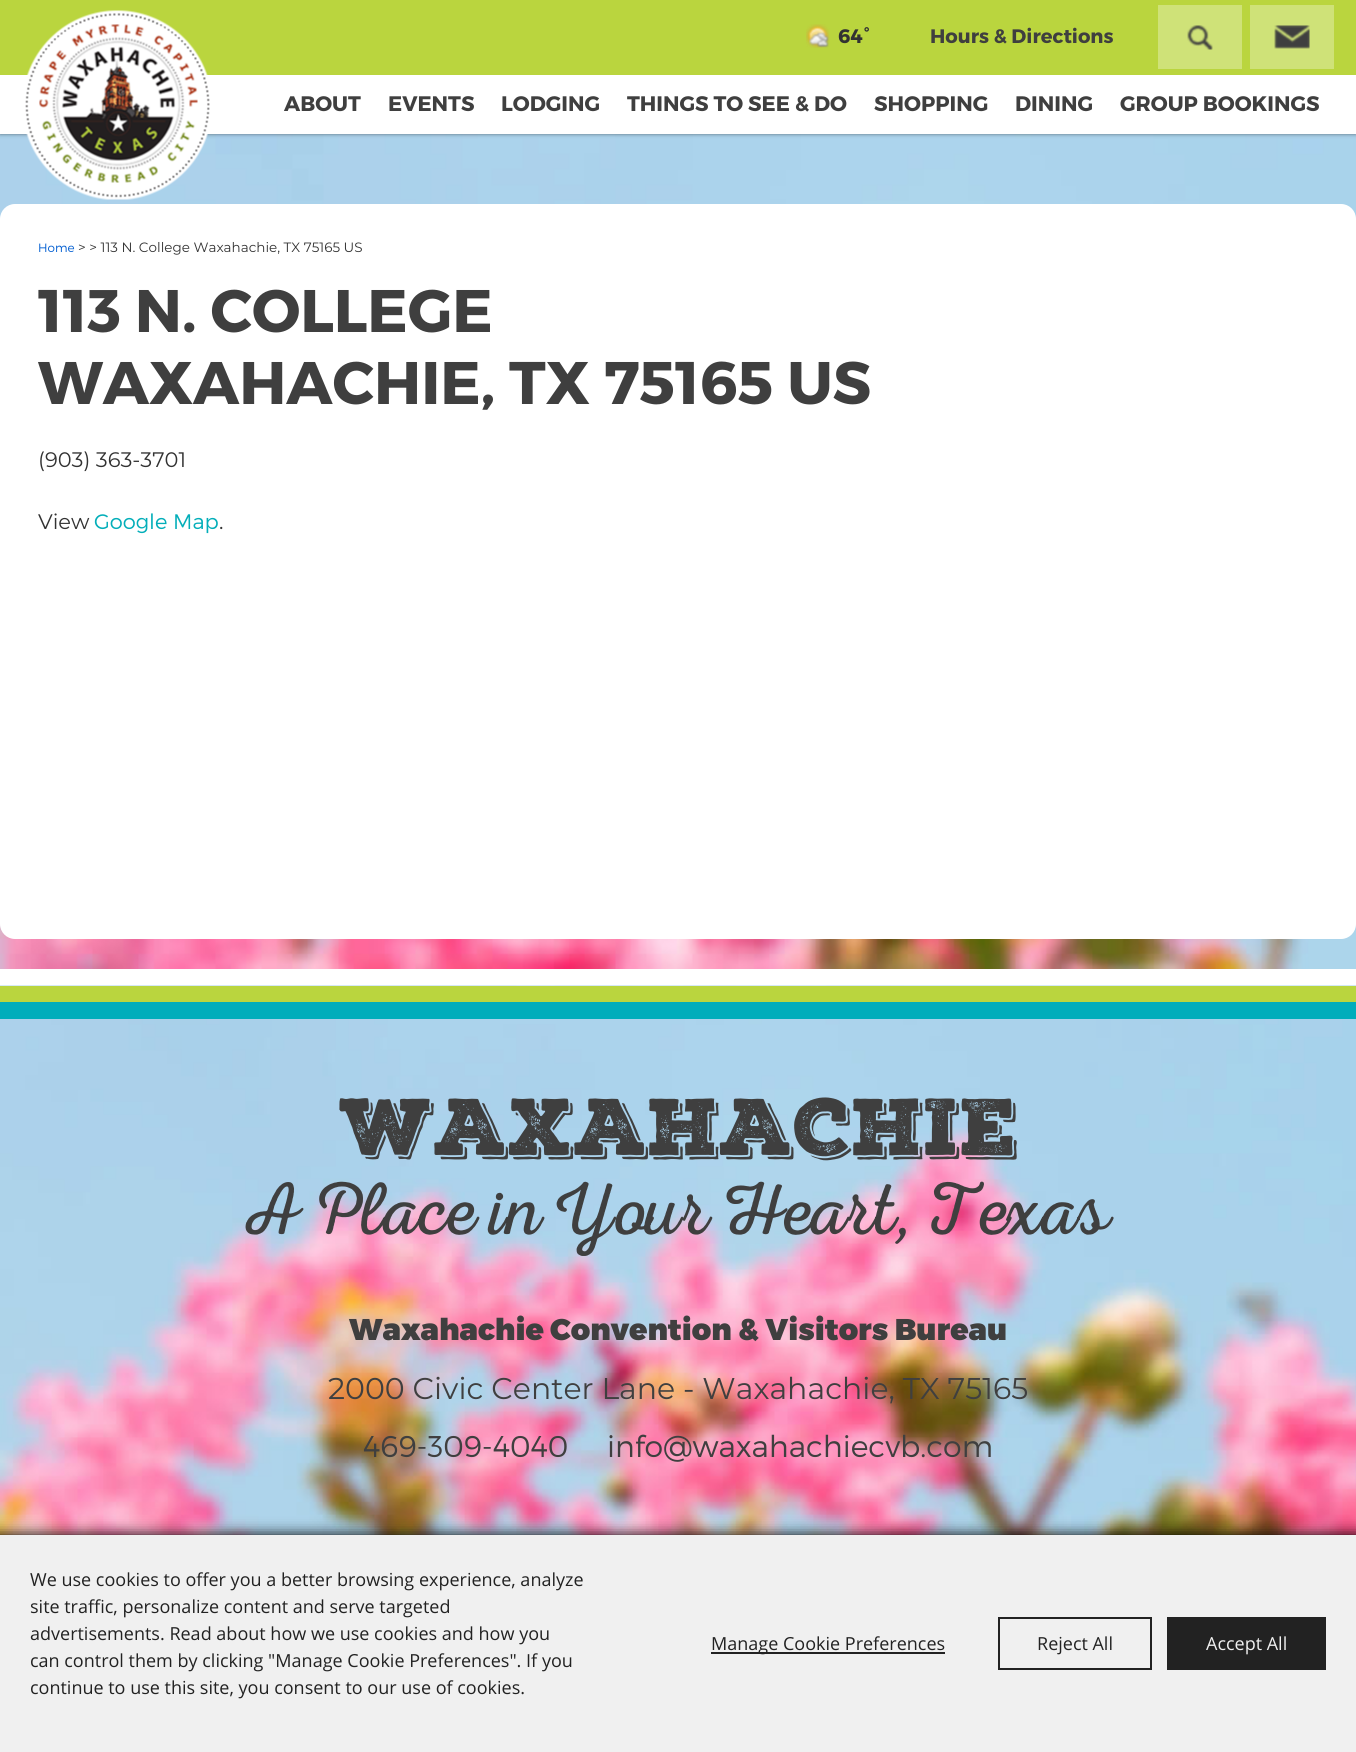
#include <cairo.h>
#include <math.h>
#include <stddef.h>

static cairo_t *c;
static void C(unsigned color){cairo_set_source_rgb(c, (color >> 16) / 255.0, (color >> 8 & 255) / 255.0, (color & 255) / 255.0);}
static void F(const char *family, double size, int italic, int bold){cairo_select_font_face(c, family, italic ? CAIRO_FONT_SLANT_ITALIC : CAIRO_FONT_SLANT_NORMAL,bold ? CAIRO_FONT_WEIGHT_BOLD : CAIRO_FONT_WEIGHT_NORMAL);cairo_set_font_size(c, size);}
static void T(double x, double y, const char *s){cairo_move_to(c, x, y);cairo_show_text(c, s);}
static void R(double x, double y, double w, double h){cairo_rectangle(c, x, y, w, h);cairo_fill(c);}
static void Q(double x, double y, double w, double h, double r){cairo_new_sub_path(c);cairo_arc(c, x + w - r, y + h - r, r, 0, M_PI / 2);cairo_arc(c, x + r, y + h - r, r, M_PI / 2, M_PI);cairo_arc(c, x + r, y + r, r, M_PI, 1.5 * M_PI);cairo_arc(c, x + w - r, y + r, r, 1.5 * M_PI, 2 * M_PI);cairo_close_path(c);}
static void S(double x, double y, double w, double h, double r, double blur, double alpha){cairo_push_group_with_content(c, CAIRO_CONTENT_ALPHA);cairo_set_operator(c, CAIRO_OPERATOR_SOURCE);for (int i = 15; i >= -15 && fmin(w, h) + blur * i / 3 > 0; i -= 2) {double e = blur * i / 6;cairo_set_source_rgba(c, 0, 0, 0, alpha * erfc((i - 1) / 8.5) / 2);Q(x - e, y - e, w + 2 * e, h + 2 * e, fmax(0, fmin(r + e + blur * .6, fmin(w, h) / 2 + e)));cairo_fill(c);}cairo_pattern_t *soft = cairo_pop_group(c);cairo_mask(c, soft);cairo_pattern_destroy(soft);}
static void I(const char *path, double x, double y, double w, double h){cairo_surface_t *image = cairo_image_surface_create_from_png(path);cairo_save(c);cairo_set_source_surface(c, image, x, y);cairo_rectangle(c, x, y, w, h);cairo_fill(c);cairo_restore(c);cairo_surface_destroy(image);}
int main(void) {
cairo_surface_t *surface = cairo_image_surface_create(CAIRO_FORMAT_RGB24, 1356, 1752);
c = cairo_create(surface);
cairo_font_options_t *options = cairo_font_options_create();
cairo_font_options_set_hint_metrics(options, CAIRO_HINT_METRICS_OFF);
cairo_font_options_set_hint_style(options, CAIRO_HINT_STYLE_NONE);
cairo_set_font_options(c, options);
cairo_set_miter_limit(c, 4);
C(0xffffff);
cairo_paint(c);
I("1.png",0,134,1356,835);
C(0x000000);
S(0,0,1356,134,0,2,.5);
C(0xffffff);
R(0,75,1356,59);
C(0xbad53e);
R(0,0,1356,75);
I("2.png",25,10,185,190);
I("3.png",806,24,24,24);
F("Montserrat",19.5,0,1);
C(0x323232);
T(838,43,"64°");
C(0x3f3f3f);
T(930,43,"Hours & Directions");
C(0xcfe278);
R(1158,5,84,64);
I("4.png",1187,25,26,25);
R(1250,5,84,64);
I("5.png",1274,25,36,24);
F("Montserrat",21,0,1);
C(0x3f3f3f);
T(284,111,"ABOUT");
T(388,111,"EVENTS");
T(501,111,"LODGING");
T(627,111,"THINGS TO SEE & DO");
T(874,111,"SHOPPING");
T(1015,111,"DINING");
T(1120,111,"GROUP BOOKINGS");
C(0xffffff);
Q(0,204,1356,735,15);
cairo_fill(c);
F("Montserrat Light",12,0,0);
C(0x005dd1);
T(38,252,"Home");
F("Montserrat",13.5,0,0);
C(0x323232);
T(78,252,"> > 113 N. College Waxahachie, TX 75165 US");
F("Montserrat",60,0,1);
C(0x3f3f3f);
T(38,332,"113 N. COLLEGE");
T(38,404,"WAXAHACHIE, TX 75165 US");
F("Montserrat",21,0,0);
C(0x323232);
T(38,467,"(903) 363-3701");
T(38,529,"View");
F("Montserrat Light",21,0,0);
C(0x03aeb9);
T(94,529,"Google Map");
F("Montserrat",21,0,0);
C(0x323232);
T(219,529,".");
I("6.png",0,985,1356,550);
C(0xbad53e);
R(0,986,1356,16);
C(0x00adbb);
R(0,1002,1356,17);
F("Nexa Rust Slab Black",78,0,0);
C(0x3f3f3f);
T(339,1155,"WAXAHACHIE");
F("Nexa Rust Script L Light",75,0,0);
T(246,1234,"A Place in Your Heart, Texas");
F("Montserrat Black",30,0,0);
T(349,1340,"Waxahachie Convention & Visitors Bureau");
F("Montserrat",30,0,0);
T(328,1399,"2000 Civic Center Lane - Waxahachie, TX 75165");
F("Montserrat Light",30,0,0);
T(363,1457,"469-309-4040");
T(607,1457,"info@waxahachiecvb.com");
C(0x000000);
S(-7,1535,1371,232,0,7.5,1);
C(0xf0f0f0);
R(0,1535,1356,217);
F("Open Sans",18,0,0);
C(0x222222);
T(30,1586,"We use cookies to offer you a better browsing experience, analyze");
T(30,1613,"site traffic, personalize content and serve targeted");
T(30,1640,"advertisements. Read about how we use cookies and how you");
T(30,1667,"can control them by clicking \"Manage Cookie Preferences\". If you");
T(30,1694,"continue to use this site, you consent to our use of cookies.");
R(711,1652,234,2);
T(711,1650,"Manage Cookie Preferences");
cairo_rectangle(c,999,1618,152,51);
cairo_stroke(c);
T(1037,1650,"Reject All");
R(1167,1617,159,53);
C(0xf0f0f0);
T(1206,1650,"Accept All");
cairo_surface_write_to_png(surface, "o.png");
cairo_font_options_destroy(options);
cairo_destroy(c);
cairo_surface_destroy(surface);
return 0;
}
